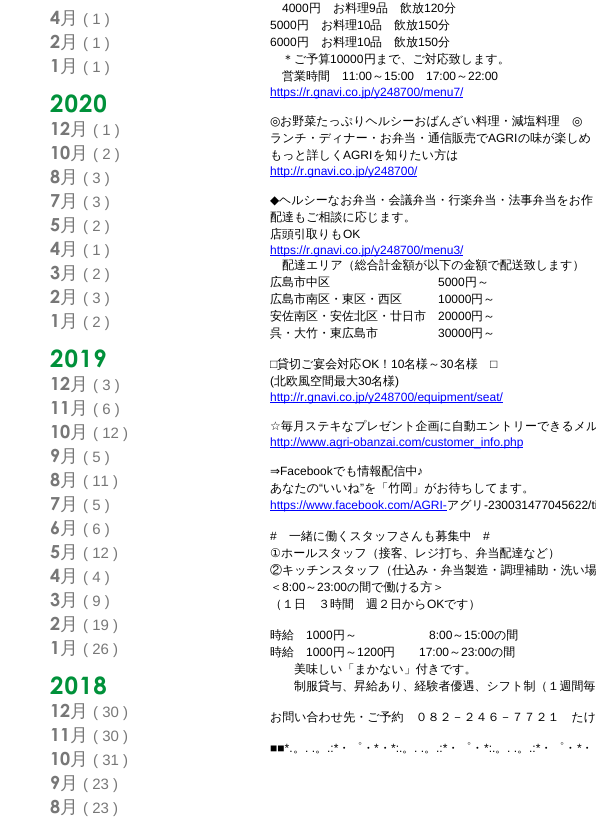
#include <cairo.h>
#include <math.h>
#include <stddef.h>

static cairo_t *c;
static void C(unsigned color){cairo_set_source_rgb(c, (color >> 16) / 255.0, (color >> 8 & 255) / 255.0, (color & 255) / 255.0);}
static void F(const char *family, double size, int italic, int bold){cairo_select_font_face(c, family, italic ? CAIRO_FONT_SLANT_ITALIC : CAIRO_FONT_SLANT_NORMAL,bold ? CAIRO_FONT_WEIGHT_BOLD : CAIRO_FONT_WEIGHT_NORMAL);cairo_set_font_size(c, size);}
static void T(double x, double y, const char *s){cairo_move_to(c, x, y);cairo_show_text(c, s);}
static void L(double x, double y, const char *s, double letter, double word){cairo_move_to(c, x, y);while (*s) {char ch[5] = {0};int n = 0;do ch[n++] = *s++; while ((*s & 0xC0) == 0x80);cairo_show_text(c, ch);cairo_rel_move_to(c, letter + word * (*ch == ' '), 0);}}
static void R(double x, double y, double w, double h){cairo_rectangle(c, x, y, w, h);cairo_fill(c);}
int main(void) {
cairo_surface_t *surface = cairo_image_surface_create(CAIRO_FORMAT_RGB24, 596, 822);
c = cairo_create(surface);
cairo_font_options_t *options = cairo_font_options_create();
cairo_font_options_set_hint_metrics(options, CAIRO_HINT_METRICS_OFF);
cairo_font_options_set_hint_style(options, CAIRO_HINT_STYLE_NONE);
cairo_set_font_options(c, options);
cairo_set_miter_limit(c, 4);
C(0xffffff);
cairo_paint(c);
F("Century Gothic",18,0,1);
C(0x777777);
T(50,24,"4");
F("WenQuanYi Zen Hei Medium",18,0,0);
T(60,24,"月");
F("Liberation Sans",15,0,0);
T(83,24,"( 1 )");
F("Century Gothic",18,0,1);
T(50,48,"2");
F("WenQuanYi Zen Hei Medium",18,0,0);
T(60,48,"月");
F("Liberation Sans",15,0,0);
T(83,48,"( 1 )");
F("Century Gothic",18,0,1);
T(50,72,"1");
F("WenQuanYi Zen Hei Medium",18,0,0);
T(60,72,"月");
F("Liberation Sans",15,0,0);
T(83,72,"( 1 )");
F("Century Gothic",24,0,1);
C(0x00913a);
L(50,112,"2020",1,0);
F("Century Gothic",18,0,1);
C(0x777777);
T(50,135,"12");
F("WenQuanYi Zen Hei Medium",18,0,0);
T(70,135,"月");
F("Liberation Sans",15,0,0);
T(93,135,"( 1 )");
F("Century Gothic",18,0,1);
T(50,159,"10");
F("WenQuanYi Zen Hei Medium",18,0,0);
T(70,159,"月");
F("Liberation Sans",15,0,0);
T(93,159,"( 2 )");
F("Century Gothic",18,0,1);
T(50,183,"8");
F("WenQuanYi Zen Hei Medium",18,0,0);
T(60,183,"月");
F("Liberation Sans",15,0,0);
T(83,183,"( 3 )");
F("Century Gothic",18,0,1);
T(50,207,"7");
F("WenQuanYi Zen Hei Medium",18,0,0);
T(60,207,"月");
F("Liberation Sans",15,0,0);
T(83,207,"( 3 )");
F("Century Gothic",18,0,1);
T(50,231,"5");
F("WenQuanYi Zen Hei Medium",18,0,0);
T(60,231,"月");
F("Liberation Sans",15,0,0);
T(83,231,"( 2 )");
F("Century Gothic",18,0,1);
T(50,255,"4");
F("WenQuanYi Zen Hei Medium",18,0,0);
T(60,255,"月");
F("Liberation Sans",15,0,0);
T(83,255,"( 1 )");
F("Century Gothic",18,0,1);
T(50,279,"3");
F("WenQuanYi Zen Hei Medium",18,0,0);
T(60,279,"月");
F("Liberation Sans",15,0,0);
T(83,279,"( 2 )");
F("Century Gothic",18,0,1);
T(50,303,"2");
F("WenQuanYi Zen Hei Medium",18,0,0);
T(60,303,"月");
F("Liberation Sans",15,0,0);
T(83,303,"( 3 )");
F("Century Gothic",18,0,1);
T(50,327,"1");
F("WenQuanYi Zen Hei Medium",18,0,0);
T(60,327,"月");
F("Liberation Sans",15,0,0);
T(83,327,"( 2 )");
F("Century Gothic",24,0,1);
C(0x00913a);
L(50,367,"2019",1,0);
F("Century Gothic",18,0,1);
C(0x777777);
T(50,390,"12");
F("WenQuanYi Zen Hei Medium",18,0,0);
T(70,390,"月");
F("Liberation Sans",15,0,0);
T(93,390,"( 3 )");
F("Century Gothic",18,0,1);
T(50,414,"11");
F("WenQuanYi Zen Hei Medium",18,0,0);
T(70,414,"月");
F("Liberation Sans",15,0,0);
T(93,414,"( 6 )");
F("Century Gothic",18,0,1);
T(50,438,"10");
F("WenQuanYi Zen Hei Medium",18,0,0);
T(70,438,"月");
F("Liberation Sans",15,0,0);
T(93,438,"( 12 )");
F("Century Gothic",18,0,1);
T(50,462,"9");
F("WenQuanYi Zen Hei Medium",18,0,0);
T(60,462,"月");
F("Liberation Sans",15,0,0);
T(83,462,"( 5 )");
F("Century Gothic",18,0,1);
T(50,486,"8");
F("WenQuanYi Zen Hei Medium",18,0,0);
T(60,486,"月");
F("Liberation Sans",15,0,0);
T(83,486,"( 11 )");
F("Century Gothic",18,0,1);
T(50,510,"7");
F("WenQuanYi Zen Hei Medium",18,0,0);
T(60,510,"月");
F("Liberation Sans",15,0,0);
T(83,510,"( 5 )");
F("Century Gothic",18,0,1);
T(50,534,"6");
F("WenQuanYi Zen Hei Medium",18,0,0);
T(60,534,"月");
F("Liberation Sans",15,0,0);
T(83,534,"( 6 )");
F("Century Gothic",18,0,1);
T(50,558,"5");
F("WenQuanYi Zen Hei Medium",18,0,0);
T(60,558,"月");
F("Liberation Sans",15,0,0);
T(83,558,"( 12 )");
F("Century Gothic",18,0,1);
T(50,582,"4");
F("WenQuanYi Zen Hei Medium",18,0,0);
T(60,582,"月");
F("Liberation Sans",15,0,0);
T(83,582,"( 4 )");
F("Century Gothic",18,0,1);
T(50,606,"3");
F("WenQuanYi Zen Hei Medium",18,0,0);
T(60,606,"月");
F("Liberation Sans",15,0,0);
T(83,606,"( 9 )");
F("Century Gothic",18,0,1);
T(50,630,"2");
F("WenQuanYi Zen Hei Medium",18,0,0);
T(60,630,"月");
F("Liberation Sans",15,0,0);
T(83,630,"( 19 )");
F("Century Gothic",18,0,1);
T(50,654,"1");
F("WenQuanYi Zen Hei Medium",18,0,0);
T(60,654,"月");
F("Liberation Sans",15,0,0);
T(83,654,"( 26 )");
F("Century Gothic",24,0,1);
C(0x00913a);
L(50,694,"2018",1,0);
F("Century Gothic",18,0,1);
C(0x777777);
T(50,717,"12");
F("WenQuanYi Zen Hei Medium",18,0,0);
T(70,717,"月");
F("Liberation Sans",15,0,0);
T(93,717,"( 30 )");
F("Century Gothic",18,0,1);
T(50,741,"11");
F("WenQuanYi Zen Hei Medium",18,0,0);
T(70,741,"月");
F("Liberation Sans",15,0,0);
T(93,741,"( 30 )");
F("Century Gothic",18,0,1);
T(50,765,"10");
F("WenQuanYi Zen Hei Medium",18,0,0);
T(70,765,"月");
F("Liberation Sans",15,0,0);
T(93,765,"( 31 )");
F("Century Gothic",18,0,1);
T(50,789,"9");
F("WenQuanYi Zen Hei Medium",18,0,0);
T(60,789,"月");
F("Liberation Sans",15,0,0);
T(83,789,"( 23 )");
F("Century Gothic",18,0,1);
T(50,813,"8");
F("WenQuanYi Zen Hei Medium",18,0,0);
T(60,813,"月");
F("Liberation Sans",15,0,0);
T(83,813,"( 23 )");
F("Liberation Sans",12,0,0);
C(0x000000);
T(282,12,"4000");
F("WenQuanYi Zen Hei Medium",12,0,0);
T(309,12,"円　お料理");
F("Liberation Sans",12,0,0);
T(369,12,"9");
F("WenQuanYi Zen Hei Medium",12,0,0);
T(376,12,"品　飲放");
F("Liberation Sans",12,0,0);
T(424,12,"120");
F("WenQuanYi Zen Hei Medium",12,0,0);
T(444,12,"分");
F("Liberation Sans",12,0,0);
T(270,29,"5000");
F("WenQuanYi Zen Hei Medium",12,0,0);
T(297,29,"円　お料理");
F("Liberation Sans",12,0,0);
T(357,29,"10");
F("WenQuanYi Zen Hei Medium",12,0,0);
T(370,29,"品　飲放");
F("Liberation Sans",12,0,0);
T(418,29,"150");
F("WenQuanYi Zen Hei Medium",12,0,0);
T(438,29,"分");
F("Liberation Sans",12,0,0);
T(270,46,"6000");
F("WenQuanYi Zen Hei Medium",12,0,0);
T(297,46,"円　お料理");
F("Liberation Sans",12,0,0);
T(357,46,"10");
F("WenQuanYi Zen Hei Medium",12,0,0);
T(370,46,"品　飲放");
F("Liberation Sans",12,0,0);
T(418,46,"150");
F("WenQuanYi Zen Hei Medium",12,0,0);
T(438,46,"分");
T(282,63,"＊ご予算");
F("Liberation Sans",12,0,0);
T(330,63,"10000");
F("WenQuanYi Zen Hei Medium",12,0,0);
T(364,63,"円まで、ご対応致します。");
T(282,80,"営業時間");
F("Liberation Sans",12,0,0);
T(342,80,"11:00");
F("WenQuanYi Zen Hei Medium",12,0,0);
T(372,80,"～");
F("Liberation Sans",12,0,0);
T(384,80,"15:00");
T(426,80,"17:00");
F("WenQuanYi Zen Hei Medium",12,0,0);
T(456,80,"～");
F("Liberation Sans",12,0,0);
T(468,80,"22:00");
C(0x0000ff);
R(270,97,193,1);
T(270,96,"https://r.gnavi.co.jp/y248700/menu7/");
F("DejaVu Sans",12,0,0);
C(0x000000);
T(270,125,"◎");
F("WenQuanYi Zen Hei Medium",12,0,0);
T(280,125,"お野菜たっぷりヘルシーおばんざい料理・減塩料理");
F("DejaVu Sans",12,0,0);
T(572,125,"◎");
F("WenQuanYi Zen Hei Medium",12,0,0);
T(270,142,"ランチ・ディナー・お弁当・通信販売で");
F("Liberation Sans",12,0,0);
T(488,142,"AGRI");
F("WenQuanYi Zen Hei Medium",12,0,0);
T(518,142,"の味が楽しめ");
T(270,159,"もっと詳しく");
F("Liberation Sans",12,0,0);
T(343,159,"AGRI");
F("WenQuanYi Zen Hei Medium",12,0,0);
T(373,159,"を知りたい方は");
C(0x0000ff);
R(270,176,147,1);
F("Liberation Sans",12,0,0);
T(270,175,"http://r.gnavi.co.jp/y248700/");
F("DejaVu Sans",12,0,0);
C(0x000000);
T(270,204,"◆");
F("WenQuanYi Zen Hei Medium",12,0,0);
T(279,204,"ヘルシーなお弁当・会議弁当・行楽弁当・法事弁当をお作");
T(270,221,"配達もご相談に応じます。");
T(270,238,"店頭引取りも");
F("Liberation Sans",12,0,0);
T(343,238,"OK");
C(0x0000ff);
R(270,255,193,1);
T(270,254,"https://r.gnavi.co.jp/y248700/menu3/");
F("WenQuanYi Zen Hei Medium",12,0,0);
C(0x000000);
T(282,269,"配達エリア（総合計金額が以下の金額で配送致します）");
T(270,286,"広島市中区");
F("Liberation Sans",12,0,0);
T(438,286,"5000");
F("WenQuanYi Zen Hei Medium",12,0,0);
T(465,286,"円～");
T(270,303,"広島市南区・東区・西区");
F("Liberation Sans",12,0,0);
T(438,303,"10000");
F("WenQuanYi Zen Hei Medium",12,0,0);
T(471,303,"円～");
T(270,320,"安佐南区・安佐北区・廿日市");
F("Liberation Sans",12,0,0);
T(438,320,"20000");
F("WenQuanYi Zen Hei Medium",12,0,0);
T(471,320,"円～");
T(270,337,"呉・大竹・東広島市");
F("Liberation Sans",12,0,0);
T(438,337,"30000");
F("WenQuanYi Zen Hei Medium",12,0,0);
T(471,337,"円～");
F("Liberation Sans",12,0,0);
T(270,368,"□");
F("WenQuanYi Zen Hei Medium",12,0,0);
T(277,368,"貸切ご宴会対応");
F("Liberation Sans",12,0,0);
T(362,368,"OK");
F("WenQuanYi Zen Hei Medium",12,0,0);
T(379,368,"！");
F("Liberation Sans",12,0,0);
T(391,368,"10");
F("WenQuanYi Zen Hei Medium",12,0,0);
T(404,368,"名様～");
F("Liberation Sans",12,0,0);
T(440,368,"30");
F("WenQuanYi Zen Hei Medium",12,0,0);
T(454,368,"名様");
F("Liberation Sans",12,0,0);
T(490,368,"□");
T(270,385,"(");
F("WenQuanYi Zen Hei Medium",12,0,0);
T(274,385,"北欧風空間最大");
F("Liberation Sans",12,0,0);
T(358,385,"30");
F("WenQuanYi Zen Hei Medium",12,0,0);
T(371,385,"名様");
F("Liberation Sans",12,0,0);
T(395,385,")");
C(0x0000ff);
R(270,402,233,1);
T(270,401,"http://r.gnavi.co.jp/y248700/equipment/seat/");
F("DejaVu Sans",12,0,0);
C(0x000000);
T(270,430,"☆");
F("WenQuanYi Zen Hei Medium",12,0,0);
T(281,430,"毎月ステキなプレゼント企画に自動エントリーできるメル");
C(0x0000ff);
R(270,447,253,1);
F("Liberation Sans",12,0,0);
T(270,446,"http://www.agri-obanzai.com/customer_info.php");
F("DejaVu Sans",12,0,0);
C(0x000000);
T(270,475,"⇒");
F("Liberation Sans",12,0,0);
T(280,475,"Facebook");
F("WenQuanYi Zen Hei Medium",12,0,0);
T(333,475,"でも情報配信中");
F("Liberation Sans",12,0,0);
T(417,475,"♪");
F("WenQuanYi Zen Hei Medium",12,0,0);
T(270,492,"あなたの");
F("Liberation Sans",12,0,0);
T(319,492,"“");
F("WenQuanYi Zen Hei Medium",12,0,0);
T(323,492,"いいね");
F("Liberation Sans",12,0,0);
T(360,492,"”");
F("WenQuanYi Zen Hei Medium",12,0,0);
T(364,492,"を「竹岡」がお待ちしてます。");
C(0x0000ff);
R(270,510,177,1);
F("Liberation Sans",12,0,0);
T(270,509,"https://www.facebook.com/AGRI-");
F("WenQuanYi Zen Hei Medium",12,0,0);
C(0x000000);
T(447,509,"アグリ");
F("Liberation Sans",12,0,0);
T(484,509,"-230031477045622/ti");
T(270,540,"#");
F("WenQuanYi Zen Hei Medium",12,0,0);
T(289,540,"一緒に働くスタッフさんも募集中");
F("Liberation Sans",12,0,0);
T(483,540,"#");
F("DejaVu Sans",12,0,0);
T(270,557,"①");
F("WenQuanYi Zen Hei Medium",12,0,0);
T(281,557,"ホールスタッフ（接客、レジ打ち、弁当配達など）");
T(270,574,"②キッチンスタッフ（仕込み・弁当製造・調理補助・洗い場");
T(270,591,"＜");
F("Liberation Sans",12,0,0);
T(282,591,"8:00");
F("WenQuanYi Zen Hei Medium",12,0,0);
T(305,591,"～");
F("Liberation Sans",12,0,0);
T(317,591,"23:00");
F("WenQuanYi Zen Hei Medium",12,0,0);
T(347,591,"の間で働ける方＞");
T(270,608,"（１日　３時間　週２日から");
F("Liberation Sans",12,0,0);
T(427,608,"OK");
F("WenQuanYi Zen Hei Medium",12,0,0);
T(444,608,"です）");
T(270,639,"時給");
F("Liberation Sans",12,0,0);
T(306,639,"1000");
F("WenQuanYi Zen Hei Medium",12,0,0);
T(333,639,"円～");
F("Liberation Sans",12,0,0);
T(429,639,"8:00");
F("WenQuanYi Zen Hei Medium",12,0,0);
T(452,639,"～");
F("Liberation Sans",12,0,0);
T(464,639,"15:00");
F("WenQuanYi Zen Hei Medium",12,0,0);
T(494,639,"の間");
T(270,656,"時給");
F("Liberation Sans",12,0,0);
T(306,656,"1000");
F("WenQuanYi Zen Hei Medium",12,0,0);
T(333,656,"円～");
F("Liberation Sans",12,0,0);
T(357,656,"1200");
F("WenQuanYi Zen Hei Medium",12,0,0);
T(383,656,"円");
F("Liberation Sans",12,0,0);
T(419,656,"17:00");
F("WenQuanYi Zen Hei Medium",12,0,0);
T(449,656,"～");
F("Liberation Sans",12,0,0);
T(461,656,"23:00");
F("WenQuanYi Zen Hei Medium",12,0,0);
T(491,656,"の間");
T(294,673,"美味しい「まかない」付きです。");
T(294,690,"制服貸与、昇給あり、経験者優遇、シフト制（１週間毎");
T(270,721,"お問い合わせ先・ご予約　０８２－２４６－７７２１　たけ");
F("Liberation Sans",12,0,0);
T(270,752,"■■*.");
T(327,752,".:*");
F("WenQuanYi Zen Hei Medium",12,0,0);
T(338,752,"・゜・");
F("Liberation Sans",12,0,0);
T(374,752,"*");
F("WenQuanYi Zen Hei Medium",12,0,0);
T(379,752,"・");
F("Liberation Sans",12,0,0);
T(391,752,"*:.");
T(436,752,".:*");
F("WenQuanYi Zen Hei Medium",12,0,0);
T(447,752,"・゜・");
F("Liberation Sans",12,0,0);
T(484,752,"*:.");
T(529,752,".:*");
F("WenQuanYi Zen Hei Medium",12,0,0);
T(540,752,"・゜・");
F("Liberation Sans",12,0,0);
T(577,752,"*");
F("WenQuanYi Zen Hei Medium",12,0,0);
T(581,752,"・");
T(293,752,"。");
F("Liberation Sans",12,0,0);
T(305,752,". .");
F("WenQuanYi Zen Hei Medium",12,0,0);
T(315,752,"。");
T(402,752,"。");
F("Liberation Sans",12,0,0);
T(414,752,". .");
F("WenQuanYi Zen Hei Medium",12,0,0);
T(424,752,"。");
T(495,752,"。");
F("Liberation Sans",12,0,0);
T(507,752,". .");
F("WenQuanYi Zen Hei Medium",12,0,0);
T(517,752,"。");
cairo_surface_write_to_png(surface, "o.png");
cairo_font_options_destroy(options);
cairo_destroy(c);
cairo_surface_destroy(surface);
return 0;
}
